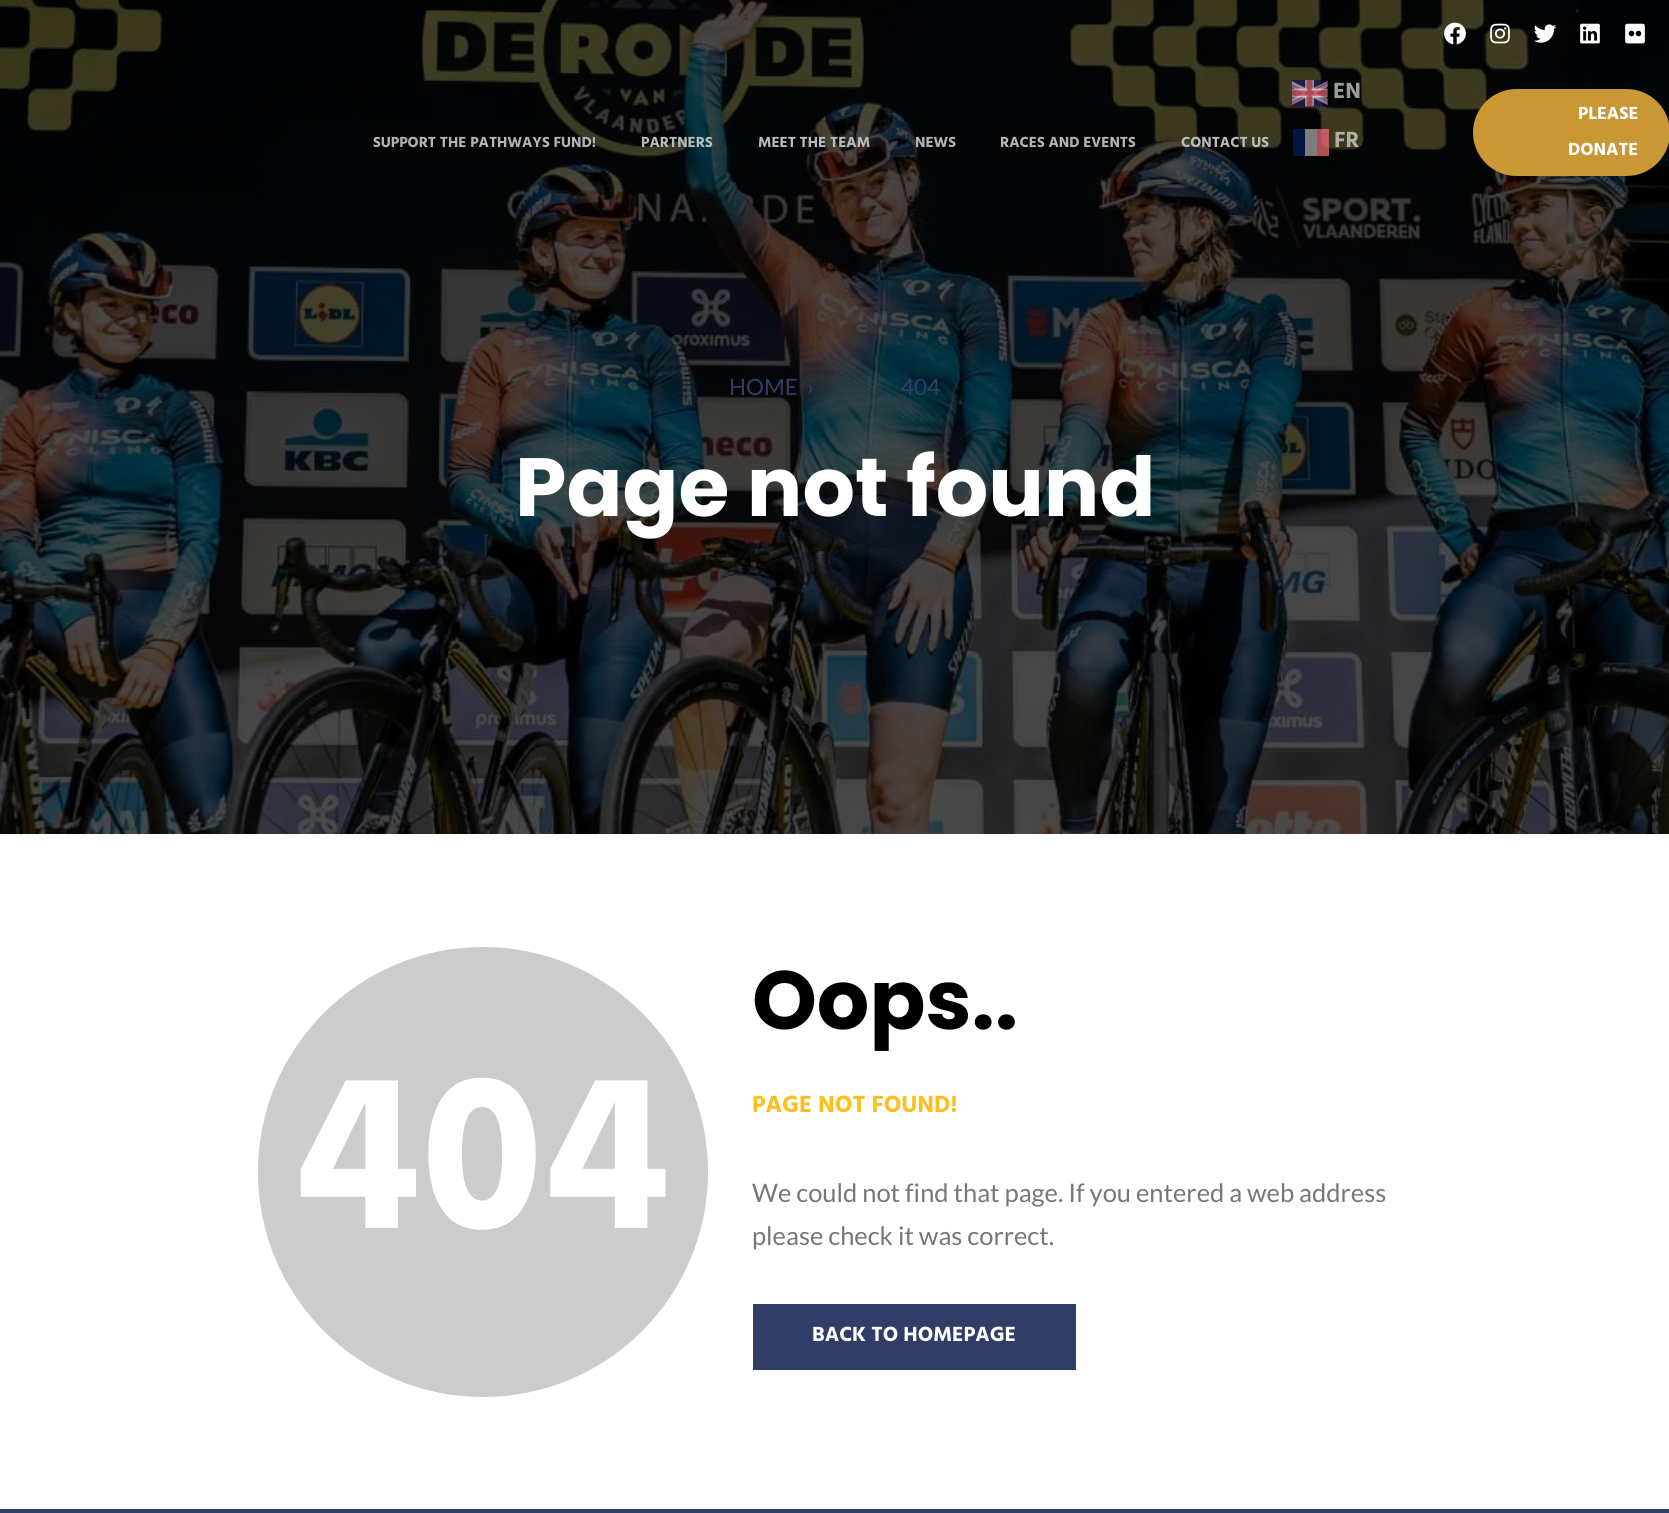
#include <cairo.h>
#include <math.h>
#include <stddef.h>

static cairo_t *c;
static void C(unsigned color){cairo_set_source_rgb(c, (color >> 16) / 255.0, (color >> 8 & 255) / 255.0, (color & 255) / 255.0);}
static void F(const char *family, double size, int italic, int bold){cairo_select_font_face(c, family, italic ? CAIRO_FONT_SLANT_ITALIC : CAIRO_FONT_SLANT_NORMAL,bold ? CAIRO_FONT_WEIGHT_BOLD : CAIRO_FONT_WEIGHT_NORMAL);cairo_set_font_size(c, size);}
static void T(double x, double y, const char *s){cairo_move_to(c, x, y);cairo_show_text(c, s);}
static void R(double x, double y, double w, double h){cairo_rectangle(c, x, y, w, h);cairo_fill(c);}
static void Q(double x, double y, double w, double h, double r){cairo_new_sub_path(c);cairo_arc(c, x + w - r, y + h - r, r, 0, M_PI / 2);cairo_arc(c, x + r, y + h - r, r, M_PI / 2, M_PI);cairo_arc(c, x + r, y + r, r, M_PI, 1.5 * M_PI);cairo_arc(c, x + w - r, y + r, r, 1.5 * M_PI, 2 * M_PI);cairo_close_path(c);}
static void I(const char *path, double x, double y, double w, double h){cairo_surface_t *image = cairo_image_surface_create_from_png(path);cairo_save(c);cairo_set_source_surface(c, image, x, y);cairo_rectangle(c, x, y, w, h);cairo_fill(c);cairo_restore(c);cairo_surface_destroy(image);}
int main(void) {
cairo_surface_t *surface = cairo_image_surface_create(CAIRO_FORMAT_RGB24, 1669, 1513);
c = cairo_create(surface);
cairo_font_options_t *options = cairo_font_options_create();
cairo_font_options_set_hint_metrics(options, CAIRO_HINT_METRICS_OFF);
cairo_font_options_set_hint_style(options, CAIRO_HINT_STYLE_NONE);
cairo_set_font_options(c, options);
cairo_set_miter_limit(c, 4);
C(0xffffff);
cairo_paint(c);
I("7.png",0,0,1669,834);
I("1.png",1444,22,22,23);
I("2.png",1490,23,20,21);
I("3.png",1534,24,23,19);
I("4.png",1580,23,20,21);
I("5.png",1625,23,20,21);
F("Hind",15,0,1);
C(0xb4b4b4);
T(373,147,"SUPPORT THE PATHWAYS FUND!");
C(0xb7bcbc);
T(641,147,"PARTNERS");
T(758,147,"MEET THE TEAM");
C(0xb4b4b4);
T(915,147,"NEWS");
T(1000,147,"RACES AND EVENTS");
C(0xb7bcbc);
T(1181,147,"CONTACT US");
I("6.png",1292,80,36,27);
F("Hind",22.5,0,1);
C(0x9a9b9b);
T(1333,98,"EN");
C(0x021540);
R(1293,129,12,27);
cairo_set_source_rgba(c,1,1,1,0.48);
R(1305,129,24,27);
cairo_set_source_rgba(c,0.953,0.094,0.188,0.48);
R(1317,129,12,27);
C(0xb1b0a4);
T(1334,147,"FR");
C(0xc99734);
Q(1473,89,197,87,43.5);
cairo_fill(c);
F("Hind",18,0,1);
C(0xffffff);
T(1578,119,"PLEASE");
T(1568,155,"DONATE");
F("Lato",22.5,0,0);
C(0x303d67);
T(729,395,"HOME");
T(807,395,"›");
T(901,395,"404");
F("Poppins",82.5,0,1);
C(0xffffff);
T(515,516,"Page not found");
C(0xcccccc);
cairo_new_path(c);
cairo_arc(c,483,1172,225,0,2 * M_PI);
cairo_fill(c);
F("Hind",225,0,1);
C(0xffffff);
T(294,1228,"404");
F("Poppins",82.5,0,1);
C(0x000000);
T(752,1029,"Oops..");
F("Hind",24,0,1);
C(0xfcbf1e);
T(752,1112,"PAGE NOT FOUND!");
F("Lato",25.5,0,0);
C(0x777777);
T(752,1202,"We could not find that page. If you entered a web address");
T(752,1245,"please check it was correct.");
C(0x303d67);
R(753,1304,323,66);
F("Hind",21,0,1);
C(0xffffff);
T(812,1341,"BACK TO HOMEPAGE");
C(0x303d67);
R(0,1509,1669,4);
cairo_surface_write_to_png(surface, "o.png");
cairo_font_options_destroy(options);
cairo_destroy(c);
cairo_surface_destroy(surface);
return 0;
}
